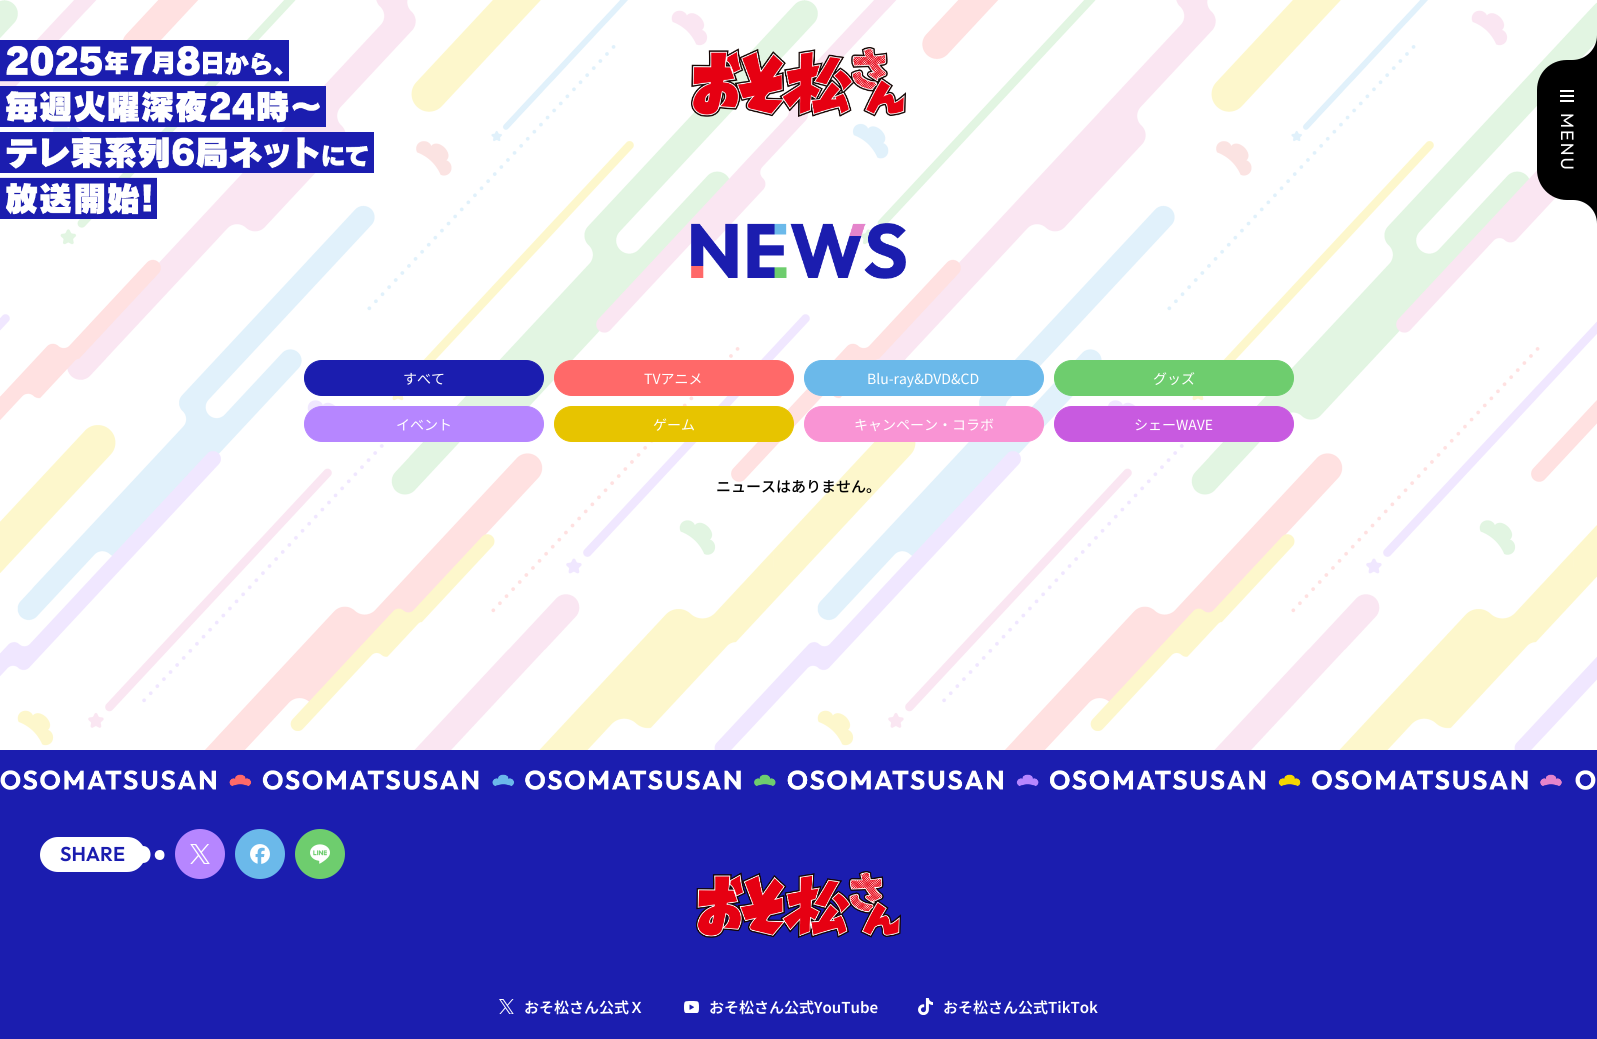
#include <cairo.h>
#include <math.h>
#include <stddef.h>

static cairo_t *c;
static void C(unsigned color){cairo_set_source_rgb(c, (color >> 16) / 255.0, (color >> 8 & 255) / 255.0, (color & 255) / 255.0);}
static void F(const char *family, double size, int italic, int bold){cairo_select_font_face(c, family, italic ? CAIRO_FONT_SLANT_ITALIC : CAIRO_FONT_SLANT_NORMAL,bold ? CAIRO_FONT_WEIGHT_BOLD : CAIRO_FONT_WEIGHT_NORMAL);cairo_set_font_size(c, size);}
static void T(double x, double y, const char *s){cairo_move_to(c, x, y);cairo_show_text(c, s);}
static void L(double x, double y, const char *s, double letter, double word){cairo_move_to(c, x, y);while (*s) {char ch[5] = {0};int n = 0;do ch[n++] = *s++; while ((*s & 0xC0) == 0x80);cairo_show_text(c, ch);cairo_rel_move_to(c, letter + word * (*ch == ' '), 0);}}
static void R(double x, double y, double w, double h){cairo_rectangle(c, x, y, w, h);cairo_fill(c);}
static void Q(double x, double y, double w, double h, double r){cairo_new_sub_path(c);cairo_arc(c, x + w - r, y + h - r, r, 0, M_PI / 2);cairo_arc(c, x + r, y + h - r, r, M_PI / 2, M_PI);cairo_arc(c, x + r, y + r, r, M_PI, 1.5 * M_PI);cairo_arc(c, x + w - r, y + r, r, 1.5 * M_PI, 2 * M_PI);cairo_close_path(c);}
static void I(const char *path, double x, double y, double w, double h){cairo_surface_t *image = cairo_image_surface_create_from_png(path);cairo_save(c);cairo_set_source_surface(c, image, x, y);cairo_rectangle(c, x, y, w, h);cairo_fill(c);cairo_restore(c);cairo_surface_destroy(image);}
int main(void) {
cairo_surface_t *surface = cairo_image_surface_create(CAIRO_FORMAT_RGB24, 1597, 1039);
c = cairo_create(surface);
cairo_font_options_t *options = cairo_font_options_create();
cairo_font_options_set_hint_metrics(options, CAIRO_HINT_METRICS_OFF);
cairo_font_options_set_hint_style(options, CAIRO_HINT_STYLE_NONE);
cairo_set_font_options(c, options);
cairo_set_miter_limit(c, 4);
C(0xffffff);
cairo_paint(c);
I("1.png",0,0,1597,750);
C(0x000000);
cairo_new_path(c);
cairo_move_to(c,1573,200);
cairo_line_to(c,1567,200);
cairo_curve_to(c,1550,200,1537,186,1537,170);
cairo_line_to(c,1537,90);
cairo_curve_to(c,1537,73,1550,60,1567,60);
cairo_line_to(c,1572,60);
cairo_curve_to(c,1586,60,1597,49,1597,35);
cairo_line_to(c,1597,224);
cairo_curve_to(c,1597,210,1586,200,1573,200);
cairo_close_path(c);
cairo_fill(c);
C(0xffffff);
R(1560,90,14,2);
R(1560,95,14,2);
R(1560,100,14,2);
F("Outfit",18,0,0);
cairo_save(c);
cairo_translate(c,1561,113);
cairo_rotate(c,90 * M_PI / 180);
L(0,0,"MENU",2,0);
cairo_restore(c);
I("2.png",0,40,374,179);
I("3.png",691,47,215,70);
I("4.png",691,223,215,56);
C(0x1b1daf);
Q(304.5,360.5,239,35,17.5);
cairo_fill_preserve(c);
cairo_set_line_width(c,1);
cairo_stroke(c);
F("Noto Sans JP Thin",14,0,0);
C(0xffffff);
T(403,384,"すべて");
C(0xff6969);
Q(554.5,360.5,239,35,17.5);
cairo_fill_preserve(c);
cairo_stroke(c);
C(0xffffff);
T(644,384,"TVアニメ");
C(0x6bb9ea);
Q(804.5,360.5,239,35,17.5);
cairo_fill_preserve(c);
cairo_stroke(c);
C(0xffffff);
T(867,384,"Blu-ray&DVD&CD");
C(0x6ecd6e);
Q(1054.5,360.5,239,35,17.5);
cairo_fill_preserve(c);
cairo_stroke(c);
C(0xffffff);
T(1153,384,"グッズ");
C(0xb686ff);
Q(304.5,406.5,239,35,17.5);
cairo_fill_preserve(c);
cairo_stroke(c);
C(0xffffff);
T(396,430,"イベント");
C(0xe7c400);
Q(554.5,406.5,239,35,17.5);
cairo_fill_preserve(c);
cairo_stroke(c);
C(0xffffff);
T(653,430,"ゲーム");
C(0xf994d4);
Q(804.5,406.5,239,35,17.5);
cairo_fill_preserve(c);
cairo_stroke(c);
C(0xffffff);
T(854,430,"キャンペーン・コラボ");
C(0xc85ae0);
Q(1054.5,406.5,239,35,17.5);
cairo_fill_preserve(c);
cairo_stroke(c);
C(0xffffff);
T(1134,430,"シェーWAVE");
F("Noto Sans JP Medium",15,0,0);
C(0x000000);
T(716,492,"ニュースはありません。");
C(0x1b1daf);
R(0,750,1597,289);
I("5.png",0,770,1596,20);
C(0xffffff);
cairo_set_fill_rule(c,CAIRO_FILL_RULE_EVEN_ODD);
cairo_new_path(c);
cairo_move_to(c,160,860);
cairo_curve_to(c,153,860,153,850,160,850);
cairo_curve_to(c,166,850,166,860,160,860);
cairo_close_path(c);
cairo_move_to(c,143,863);
cairo_curve_to(c,139,869,134,872,127,872);
cairo_line_to(c,58,872);
cairo_curve_to(c,48,872,40,864,40,855);
cairo_curve_to(c,40,845,48,837,58,837);
cairo_line_to(c,127,837);
cairo_curve_to(c,134,837,139,840,143,846);
cairo_curve_to(c,153,846,153,863,143,863);
cairo_close_path(c);
cairo_fill(c);
F("Outfit SemiBold",20,0,0);
C(0x1b1daf);
T(60,861,"SHARE");
C(0xb686ff);
cairo_new_path(c);
cairo_arc(c,200,854,25,0,2 * M_PI);
cairo_fill(c);
I("6.png",190,844,20,20);
C(0x6bb9ea);
cairo_arc(c,260,854,25,0,2 * M_PI);
cairo_fill(c);
I("7.png",250,844,20,20);
C(0x6ecd6e);
cairo_arc(c,320,854,25,0,2 * M_PI);
cairo_fill(c);
I("8.png",310,844,20,20);
I("9.png",696,871,205,67);
I("10.png",499,999,15,15);
F("Noto Sans JP SemiBold",15,0,0);
C(0xffffff);
T(524,1013,"おそ松さん公式Ｘ");
I("11.png",684,1001,15,12);
T(709,1013,"おそ松さん公式YouTube");
I("12.png",918,998,15,17);
T(943,1013,"おそ松さん公式TikTok");
cairo_surface_write_to_png(surface, "o.png");
cairo_font_options_destroy(options);
cairo_destroy(c);
cairo_surface_destroy(surface);
return 0;
}
